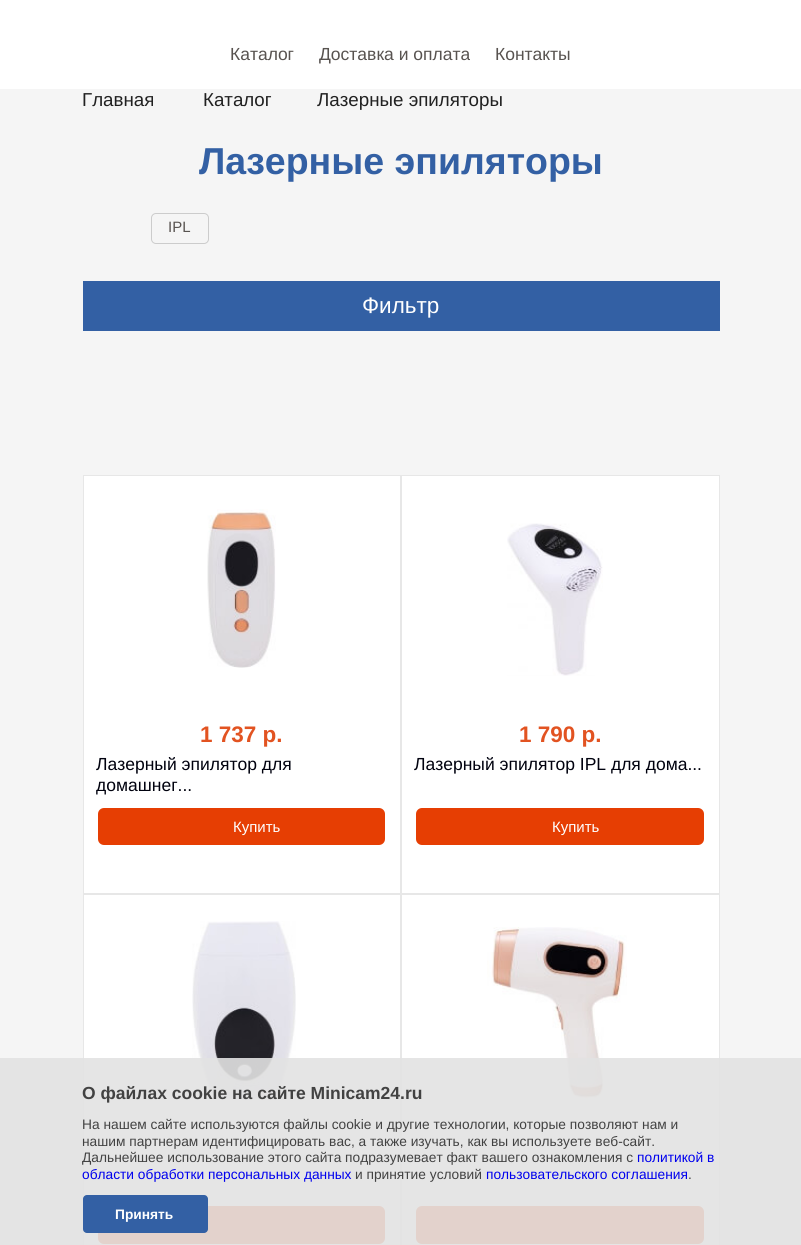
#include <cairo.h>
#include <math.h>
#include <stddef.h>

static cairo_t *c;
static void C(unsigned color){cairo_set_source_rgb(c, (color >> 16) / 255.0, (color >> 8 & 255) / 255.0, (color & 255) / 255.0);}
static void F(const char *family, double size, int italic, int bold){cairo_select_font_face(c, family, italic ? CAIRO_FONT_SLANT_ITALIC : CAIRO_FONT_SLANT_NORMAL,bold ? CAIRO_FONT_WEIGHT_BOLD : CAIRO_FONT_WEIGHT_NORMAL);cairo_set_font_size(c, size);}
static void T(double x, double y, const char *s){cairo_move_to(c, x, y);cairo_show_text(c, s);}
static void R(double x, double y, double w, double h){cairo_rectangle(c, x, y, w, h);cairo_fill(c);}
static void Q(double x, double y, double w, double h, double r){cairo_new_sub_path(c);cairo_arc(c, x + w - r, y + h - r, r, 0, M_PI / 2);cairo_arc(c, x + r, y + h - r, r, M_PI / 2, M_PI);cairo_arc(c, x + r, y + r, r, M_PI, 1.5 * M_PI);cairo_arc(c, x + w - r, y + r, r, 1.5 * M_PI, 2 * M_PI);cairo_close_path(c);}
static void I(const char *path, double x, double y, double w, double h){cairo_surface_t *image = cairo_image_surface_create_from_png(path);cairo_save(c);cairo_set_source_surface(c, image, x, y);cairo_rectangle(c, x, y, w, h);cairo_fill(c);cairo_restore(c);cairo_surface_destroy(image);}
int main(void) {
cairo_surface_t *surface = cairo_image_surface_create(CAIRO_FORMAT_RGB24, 801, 1245);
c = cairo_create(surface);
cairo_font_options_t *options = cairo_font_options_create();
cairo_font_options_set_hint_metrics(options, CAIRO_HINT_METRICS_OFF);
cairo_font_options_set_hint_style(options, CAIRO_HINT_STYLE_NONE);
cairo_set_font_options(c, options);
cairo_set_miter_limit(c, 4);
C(0xf5f5f5);
cairo_paint(c);
C(0xffffff);
R(0,0,801,89);
F("Liberation Sans",17.5,0,0);
C(0x585350);
T(230,60,"Каталог");
T(319,60,"Доставка и оплата");
T(495,60,"Контакты");
F("Liberation Sans",18.75,0,0);
C(0x212121);
T(82,106,"Главная");
T(203,106,"Каталог");
T(317,106,"Лазерные эпиляторы");
F("Liberation Sans",37.5,0,1);
C(0x3360a4);
T(199,174,"Лазерные эпиляторы");
Q(151.5,213.5,57,30,4.5);
C(0xcccccc);
cairo_set_line_width(c,1);
cairo_stroke(c);
F("Liberation Sans",15,0,0);
C(0x585350);
T(168,232,"IPL");
C(0x3360a4);
R(83,281,637,50);
F("Liberation Sans",22.5,0,0);
C(0xffffff);
T(362,313,"Фильтр");
cairo_rectangle(c,83.5,475.5,317,418);
cairo_fill_preserve(c);
C(0xe7e7e7);
cairo_stroke(c);
I("1.png",207,509,69,159);
F("Liberation Sans",22.5,0,1);
C(0xe25321);
T(200,742,"1 737 р.");
F("Liberation Sans",17.5,0,0);
C(0x00010e);
T(96,770,"Лазерный эпилятор для");
T(96,791,"домашнег...");
C(0xe63e03);
Q(98,808,287,37,6);
cairo_fill(c);
F("Liberation Sans",15,0,0);
C(0xffffff);
T(233,832,"Купить");
cairo_rectangle(c,401.5,475.5,318,418);
cairo_fill_preserve(c);
C(0xe7e7e7);
cairo_stroke(c);
I("2.png",507,523,96,153);
F("Liberation Sans",22.5,0,1);
C(0xe25321);
T(519,742,"1 790 р.");
F("Liberation Sans",17.5,0,0);
C(0x00010e);
T(414,770,"Лазерный эпилятор IPL для дома...");
C(0xe63e03);
Q(416,808,288,37,6);
cairo_fill(c);
F("Liberation Sans",15,0,0);
C(0xffffff);
T(552,832,"Купить");
cairo_rectangle(c,83.5,894.5,317,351);
cairo_fill_preserve(c);
C(0xe7e7e7);
cairo_stroke(c);
I("3.png",192,921,104,179);
C(0xe63e03);
Q(98,1206,287,38,6);
cairo_fill(c);
C(0xffffff);
cairo_rectangle(c,401.5,894.5,318,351);
cairo_fill_preserve(c);
C(0xe7e7e7);
cairo_stroke(c);
I("4.png",487,927,140,172);
C(0xe63e03);
Q(416,1206,288,38,6);
cairo_fill(c);
cairo_set_source_rgba(c,0.886,0.886,0.886,0.9);
R(0,1058,801,187);
F("Liberation Sans",17.5,0,1);
C(0x424242);
T(82,1099,"О файлах cookie на сайте Minicam24.ru");
F("Liberation Sans",13.75,0,0);
T(82,1129,"На нашем сайте используются файлы cookie и другие технологии, которые позволяют нам и");
T(82,1146,"нашим партнерам идентифицировать вас, а также изучать, как вы используете веб-сайт.");
T(82,1162,"Дальнейшее использование этого сайта подразумевает факт вашего ознакомления с");
C(0x0000ee);
T(637,1162,"политикой в");
T(82,1179,"области обработки персональных данных");
C(0x424242);
T(355,1179,"и принятие условий");
C(0x0000ee);
T(486,1179,"пользовательского соглашения");
C(0x424242);
T(688,1179,".");
C(0x3360a4);
Q(83,1195,125,38,4);
cairo_fill(c);
F("Liberation Sans",13.75,0,1);
C(0xffffff);
T(115,1219,"Принять");
cairo_surface_write_to_png(surface, "o.png");
cairo_font_options_destroy(options);
cairo_destroy(c);
cairo_surface_destroy(surface);
return 0;
}
